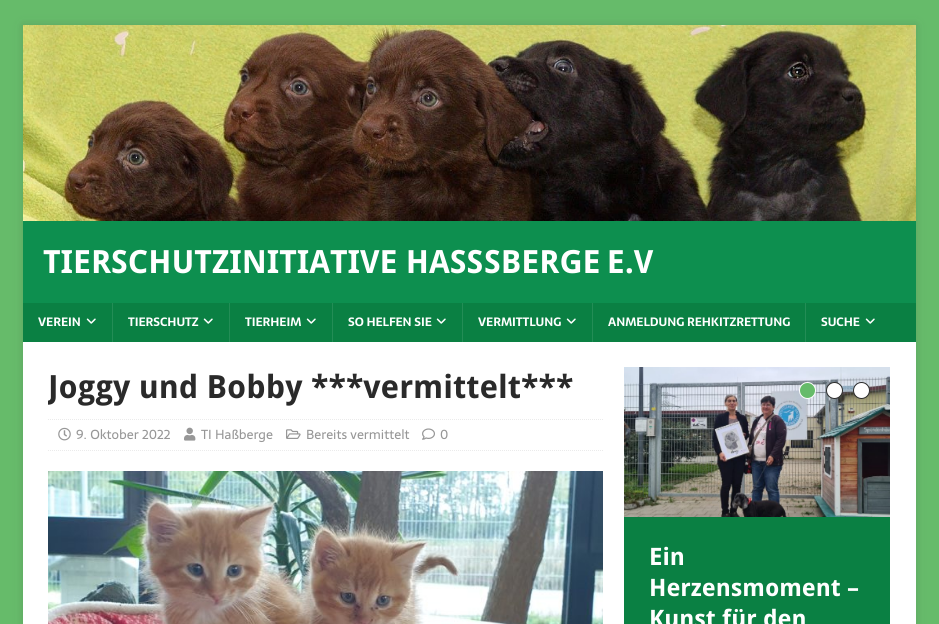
#include <cairo.h>
#include <math.h>
#include <stddef.h>

static cairo_t *c;
static void C(unsigned color){cairo_set_source_rgb(c, (color >> 16) / 255.0, (color >> 8 & 255) / 255.0, (color & 255) / 255.0);}
static void F(const char *family, double size, int italic, int bold){cairo_select_font_face(c, family, italic ? CAIRO_FONT_SLANT_ITALIC : CAIRO_FONT_SLANT_NORMAL,bold ? CAIRO_FONT_WEIGHT_BOLD : CAIRO_FONT_WEIGHT_NORMAL);cairo_set_font_size(c, size);}
static void T(double x, double y, const char *s){cairo_move_to(c, x, y);cairo_show_text(c, s);}
static void L(double x, double y, const char *s, double letter, double word){cairo_move_to(c, x, y);while (*s) {char ch[5] = {0};int n = 0;do ch[n++] = *s++; while ((*s & 0xC0) == 0x80);cairo_show_text(c, ch);cairo_rel_move_to(c, letter + word * (*ch == ' '), 0);}}
static void R(double x, double y, double w, double h){cairo_rectangle(c, x, y, w, h);cairo_fill(c);}
static void Q(double x, double y, double w, double h, double r){cairo_new_sub_path(c);cairo_arc(c, x + w - r, y + h - r, r, 0, M_PI / 2);cairo_arc(c, x + r, y + h - r, r, M_PI / 2, M_PI);cairo_arc(c, x + r, y + r, r, M_PI, 1.5 * M_PI);cairo_arc(c, x + w - r, y + r, r, 1.5 * M_PI, 2 * M_PI);cairo_close_path(c);}
static void S(double x, double y, double w, double h, double r, double blur, double alpha){cairo_push_group_with_content(c, CAIRO_CONTENT_ALPHA);cairo_set_operator(c, CAIRO_OPERATOR_SOURCE);for (int i = 15; i >= -15 && fmin(w, h) + blur * i / 3 > 0; i -= 2) {double e = blur * i / 6;cairo_set_source_rgba(c, 0, 0, 0, alpha * erfc((i - 1) / 8.5) / 2);Q(x - e, y - e, w + 2 * e, h + 2 * e, fmax(0, fmin(r + e + blur * .6, fmin(w, h) / 2 + e)));cairo_fill(c);}cairo_pattern_t *soft = cairo_pop_group(c);cairo_mask(c, soft);cairo_pattern_destroy(soft);}
static void I(const char *path, double x, double y, double w, double h){cairo_surface_t *image = cairo_image_surface_create_from_png(path);cairo_save(c);cairo_set_source_surface(c, image, x, y);cairo_rectangle(c, x, y, w, h);cairo_fill(c);cairo_restore(c);cairo_surface_destroy(image);}
int main(void) {
cairo_surface_t *surface = cairo_image_surface_create(CAIRO_FORMAT_RGB24, 939, 624);
c = cairo_create(surface);
cairo_font_options_t *options = cairo_font_options_create();
cairo_font_options_set_hint_metrics(options, CAIRO_HINT_METRICS_OFF);
cairo_font_options_set_hint_style(options, CAIRO_HINT_STYLE_NONE);
cairo_set_font_options(c, options);
cairo_set_miter_limit(c, 4);
C(0x66bb6a);
cairo_paint(c);
C(0x323232);
S(23,25,893,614,0,5,.17);
C(0x0d8f4f);
R(23,221,893,82);
I("1.png",23,25,893,196);
F("Droid Sans",32,0,1);
C(0xffffff);
T(43,273,"TIERSCHUTZINITIATIVE HASS");
L(484,273,"SBERGE E.V",0,-2);
C(0x0a8043);
R(23,303,893,39);
F("Sarala",12,0,1);
C(0xffffff);
T(38,326,"VEREIN");
I("2.png",86,318,10,6);
C(0x238d56);
R(112,303,1,39);
C(0xffffff);
T(128,326,"TIERSCHUTZ");
I("2.png",203,318,10,6);
C(0x238d56);
R(229,303,1,39);
C(0xffffff);
T(245,326,"TIERHEIM");
I("2.png",306,318,10,6);
C(0x238d56);
R(332,303,1,39);
C(0xffffff);
T(348,326,"SO HELFEN SIE");
I("2.png",436,318,10,6);
C(0x238d56);
R(462,303,1,39);
C(0xffffff);
T(478,326,"VERMITTLUNG");
I("2.png",566,318,10,6);
C(0x238d56);
R(592,303,1,39);
C(0xffffff);
T(608,326,"ANMELDUNG REHKITZRETTUNG");
C(0x238d56);
R(805,303,1,39);
C(0xffffff);
T(821,326,"SUCHE");
I("2.png",865,318,10,6);
R(23,342,893,282);
cairo_save(c);
cairo_rectangle(c,48,367,555,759);
cairo_clip(c);
F("Droid Sans",32,0,1);
C(0x2a2a2a);
T(48,398,"Joggy und Bobby");
cairo_restore(c);
F("Droid Sans",32,0,1);
C(0x2a2a2a);
T(311,398,"***vermittelt***");
cairo_new_path(c);
cairo_move_to(c,48,419.5);
cairo_line_to(c,603,419.5);
C(0xebebeb);
cairo_set_line_width(c,1);
cairo_set_dash(c,(double[]){1,1},2,0);
cairo_stroke(c);
cairo_new_path(c);
cairo_move_to(c,48,450.5);
cairo_line_to(c,603,450.5);
cairo_stroke(c);
I("3.png",58,427,13,14);
F("Sarala",13,0,0);
C(0x979797);
T(76,439,"9. Oktober 2022");
I("4.png",184,427,12,14);
T(201,439,"TI Haßberge");
I("5.png",286,429,15,10);
T(306,439,"Bereits vermittelt");
I("6.png",422,428,13,12);
T(440,439,"0");
I("7.png",48,471,555,153);
I("8.png",624,367,266,150);
C(0x66bb6a);
cairo_arc(c,807.5,390.5,8,0,2 * M_PI);
cairo_fill_preserve(c);
C(0xffffff);
cairo_set_dash(c,NULL,0,0);
cairo_stroke(c);
cairo_arc(c,834.5,390.5,8,0,2 * M_PI);
cairo_fill_preserve(c);
C(0x2a2a2a);
cairo_stroke(c);
C(0xffffff);
cairo_arc(c,861.5,390.5,8,0,2 * M_PI);
cairo_fill_preserve(c);
C(0x2a2a2a);
cairo_stroke(c);
C(0x0a8043);
R(624,517,266,107);
F("Droid Sans",24,0,1);
C(0xffffff);
T(649,565,"Ein");
T(649,596,"Herzensmoment –");
T(649,627,"Kunst für den");
cairo_surface_write_to_png(surface, "o.png");
cairo_font_options_destroy(options);
cairo_destroy(c);
cairo_surface_destroy(surface);
return 0;
}
